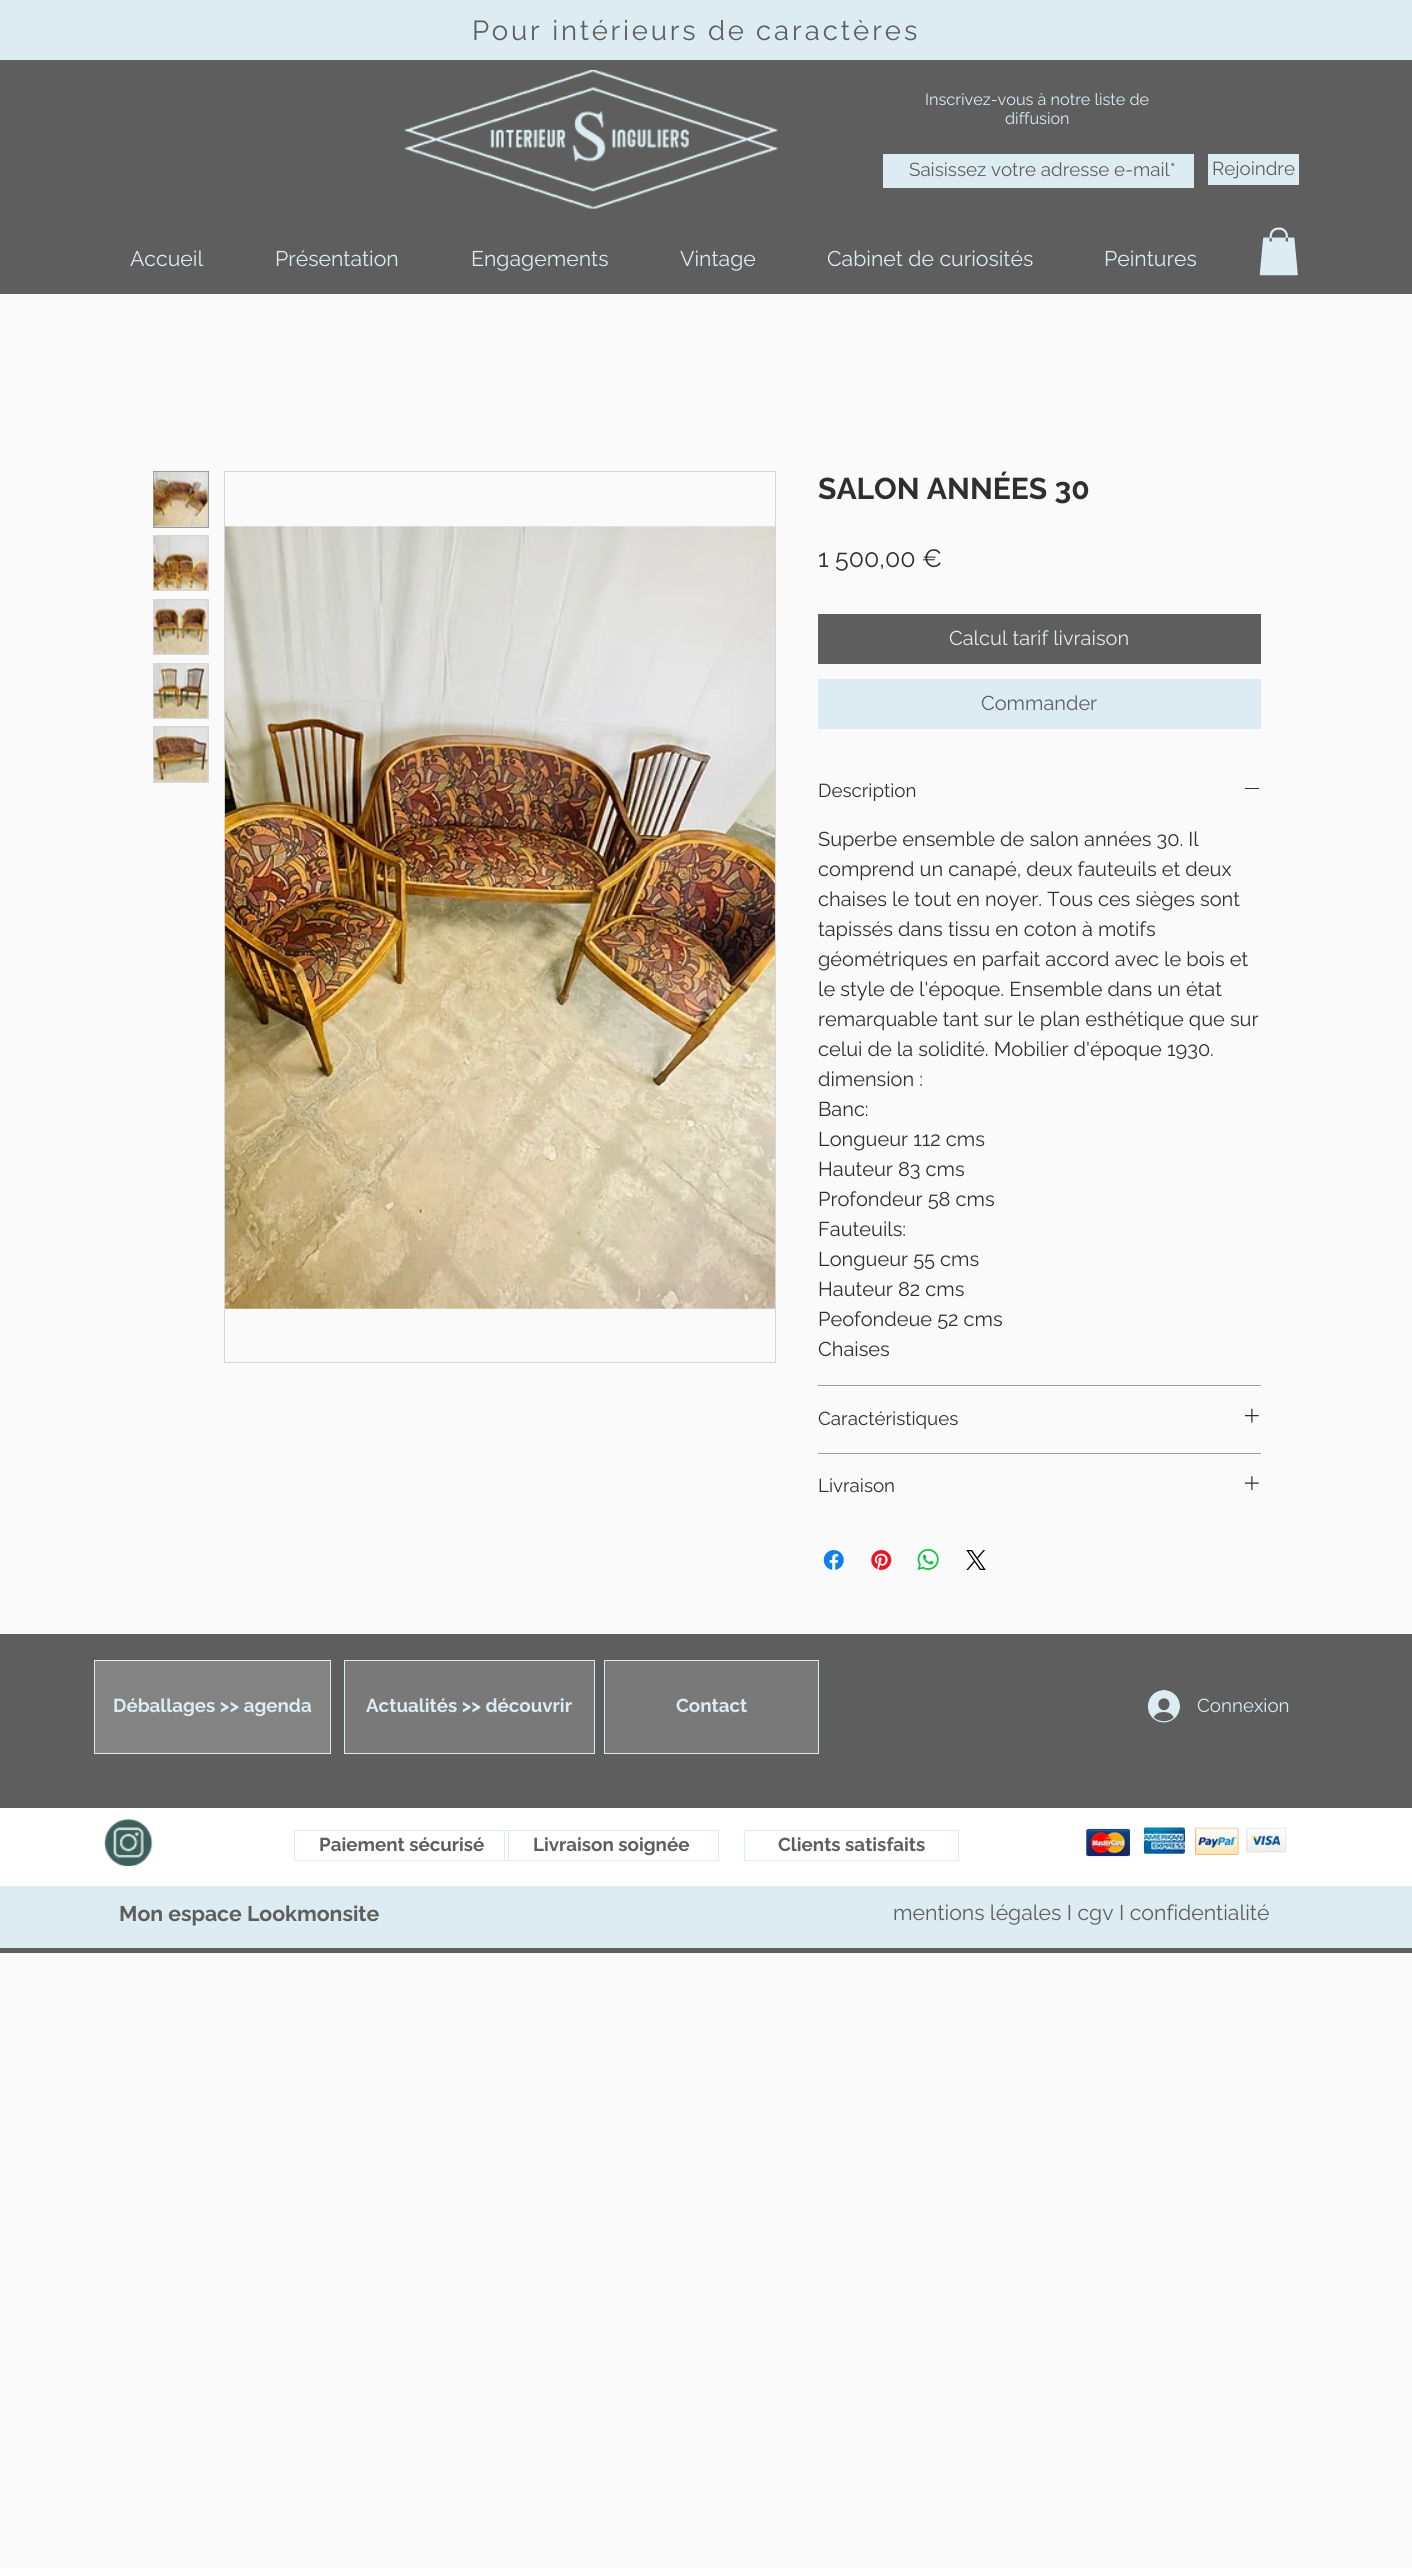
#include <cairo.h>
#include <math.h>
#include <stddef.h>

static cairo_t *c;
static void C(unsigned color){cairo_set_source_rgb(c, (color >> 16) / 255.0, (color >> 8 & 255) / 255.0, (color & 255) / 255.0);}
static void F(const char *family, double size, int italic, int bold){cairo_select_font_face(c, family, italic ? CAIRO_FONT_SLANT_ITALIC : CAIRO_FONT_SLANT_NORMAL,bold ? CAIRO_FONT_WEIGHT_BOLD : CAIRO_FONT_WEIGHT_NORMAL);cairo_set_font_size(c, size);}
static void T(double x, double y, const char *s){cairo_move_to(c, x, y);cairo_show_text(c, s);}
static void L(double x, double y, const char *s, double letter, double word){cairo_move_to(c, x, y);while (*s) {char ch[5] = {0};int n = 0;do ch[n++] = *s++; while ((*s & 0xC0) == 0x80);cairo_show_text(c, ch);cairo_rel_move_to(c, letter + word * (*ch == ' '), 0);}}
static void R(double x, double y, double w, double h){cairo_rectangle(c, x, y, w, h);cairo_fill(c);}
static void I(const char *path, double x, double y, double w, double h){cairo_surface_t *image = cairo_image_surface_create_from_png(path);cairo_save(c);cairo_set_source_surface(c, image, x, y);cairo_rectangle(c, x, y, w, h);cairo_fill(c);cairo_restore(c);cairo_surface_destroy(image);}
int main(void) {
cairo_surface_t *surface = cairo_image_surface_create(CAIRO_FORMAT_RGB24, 1412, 2568);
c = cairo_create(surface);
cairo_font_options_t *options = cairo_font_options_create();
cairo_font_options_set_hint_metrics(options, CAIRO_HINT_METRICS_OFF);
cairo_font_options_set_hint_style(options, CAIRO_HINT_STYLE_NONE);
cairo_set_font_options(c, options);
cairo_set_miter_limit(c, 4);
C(0xfafafa);
cairo_paint(c);
C(0xdcecf2);
R(0,0,1412,60);
F("Raleway",27.5,0,0);
C(0x5e5e5e);
L(472,40,"Pour intérieurs de",2.75,0);
L(756,40,"caractères",3,0);
R(0,60,1412,234);
I("1.png",404,70,375,139);
F("Raleway",16.25,0,0);
C(0xdcecf2);
T(925,105,"Inscrivez-vous à notre liste de");
T(1005,124,"diffusion");
R(883,154,311,34);
F("Raleway",18.75,0,0);
C(0x5e5e5e);
T(909,176,"Saisissez votre adresse e-mail*");
C(0xdcecf2);
R(1208,154,91,31);
C(0x5e5e5e);
T(1212,175,"Rejoindre");
F("Raleway",21.25,0,0);
C(0xdcecf2);
T(130,266,"Accueil");
T(275,266,"Présentation");
T(471,266,"Engagements");
T(680,266,"Vintage");
T(827,266,"Cabinet de curiosités");
T(1104,266,"Peintures");
I("2.png",1259,227,39,49);
C(0xd6d6d6);
cairo_rectangle(c,153.5,471.5,55,56);
cairo_fill_preserve(c);
C(0x9c9c9c);
cairo_set_line_width(c,1);
cairo_stroke(c);
I("3.png",153,472,55,55);
C(0xd6d6d6);
R(153,535,56,56);
I("4.png",153,536,55,55);
R(153,599,56,56);
I("5.png",153,600,55,54);
R(153,663,56,56);
I("6.png",153,663,55,55);
R(153,726,56,57);
I("7.png",153,727,55,55);
cairo_rectangle(c,224.5,471.5,551,891);
cairo_stroke(c);
I("8.png",225,526,550,783);
F("Raleway",30,0,1);
C(0x2f2f2f);
T(818,499,"SALON ANNÉES 30");
F("Raleway",25,0,0);
T(818,567,"1 500,00 €");
C(0x5e5e5e);
R(818,614,443,50);
F("Raleway",20,0,0);
C(0xdcecf2);
T(949,645,"Calcul tarif livraison");
R(818,679,443,50);
C(0x5e5e5e);
T(981,710,"Commander");
C(0x9c9c9c);
R(818,1385,443,1);
F("Raleway",18.75,0,0);
C(0x2f2f2f);
T(818,797,"Description");
R(1245,788,14,1);
F("Raleway",20,0,0);
T(818,846,"Superbe ensemble de salon années 30. Il");
T(818,876,"comprend un canapé, deux fauteuils et deux");
T(818,906,"chaises le tout en noyer. Tous ces sièges sont");
T(818,936,"tapissés dans tissu en coton à motifs");
T(818,966,"géométriques en parfait accord avec le bois et");
T(818,996,"le style de l'époque. Ensemble dans un état");
T(818,1026,"remarquable tant sur le plan esthétique que sur");
T(818,1056,"celui de la solidité. Mobilier d'époque 1930.");
T(818,1086,"dimension :");
T(818,1116,"Banc:");
T(818,1146,"Longueur 112 cms");
T(818,1176,"Hauteur 83 cms");
T(818,1206,"Profondeur 58 cms");
T(818,1236,"Fauteuils:");
T(818,1266,"Longueur 55 cms");
T(818,1296,"Hauteur 82 cms");
T(818,1326,"Peofondeue 52 cms");
T(818,1356,"Chaises");
C(0x9c9c9c);
R(818,1453,443,1);
F("Raleway",18.75,0,0);
C(0x2f2f2f);
T(818,1425,"Caractéristiques");
I("9.png",1245,1408,14,15);
T(818,1492,"Livraison");
I("10.png",1245,1476,14,14);
I("11.png",823,1550,21,20);
I("12.png",871,1550,21,20);
I("13.png",917,1548,22,23);
I("14.png",966,1550,20,20);
C(0x5e5e5e);
R(0,1634,1412,319);
C(0x838383);
cairo_rectangle(c,94.5,1660.5,236,93);
cairo_fill_preserve(c);
C(0xdcecf2);
cairo_stroke(c);
F("Raleway",18.75,0,1);
T(113,1712,"Déballages >> agenda");
C(0x797979);
cairo_rectangle(c,344.5,1660.5,250,93);
cairo_fill_preserve(c);
C(0xdcecf2);
cairo_stroke(c);
T(366,1712,"Actualités >> découvrir");
C(0x797979);
cairo_rectangle(c,604.5,1660.5,214,93);
cairo_fill_preserve(c);
C(0xdcecf2);
cairo_stroke(c);
T(676,1712,"Contact");
I("15.png",1148,1690,32,33);
F("Raleway",18.75,0,0);
T(1197,1712,"Connexion");
C(0xffffff);
R(0,1808,1412,78);
I("16.png",104,1818,49,49);
cairo_rectangle(c,294.5,1830.5,214,30);
C(0xdcecf2);
cairo_stroke(c);
F("Raleway",18.75,0,1);
C(0x5e5e5e);
T(319,1851,"Paiement sécurisé");
cairo_rectangle(c,504.5,1830.5,214,30);
C(0xdcecf2);
cairo_stroke(c);
C(0x5e5e5e);
T(533,1851,"Livraison soignée");
cairo_rectangle(c,744.5,1830.5,214,30);
C(0xdcecf2);
cairo_stroke(c);
C(0x5e5e5e);
T(778,1851,"Clients satisfaits");
I("17.png",1086,1828,44,29);
I("18.png",1143,1827,42,27);
I("19.png",1195,1827,44,28);
I("20.png",1246,1827,41,26);
C(0xdcecf2);
R(0,1886,1412,62);
F("Raleway",21.25,0,1);
C(0x5e5e5e);
T(119,1921,"Mon espace Lookmonsite");
F("Raleway",21.25,0,0);
T(893,1920,"mentions légales I cgv I confidentialité");
cairo_surface_write_to_png(surface, "o.png");
cairo_font_options_destroy(options);
cairo_destroy(c);
cairo_surface_destroy(surface);
return 0;
}
